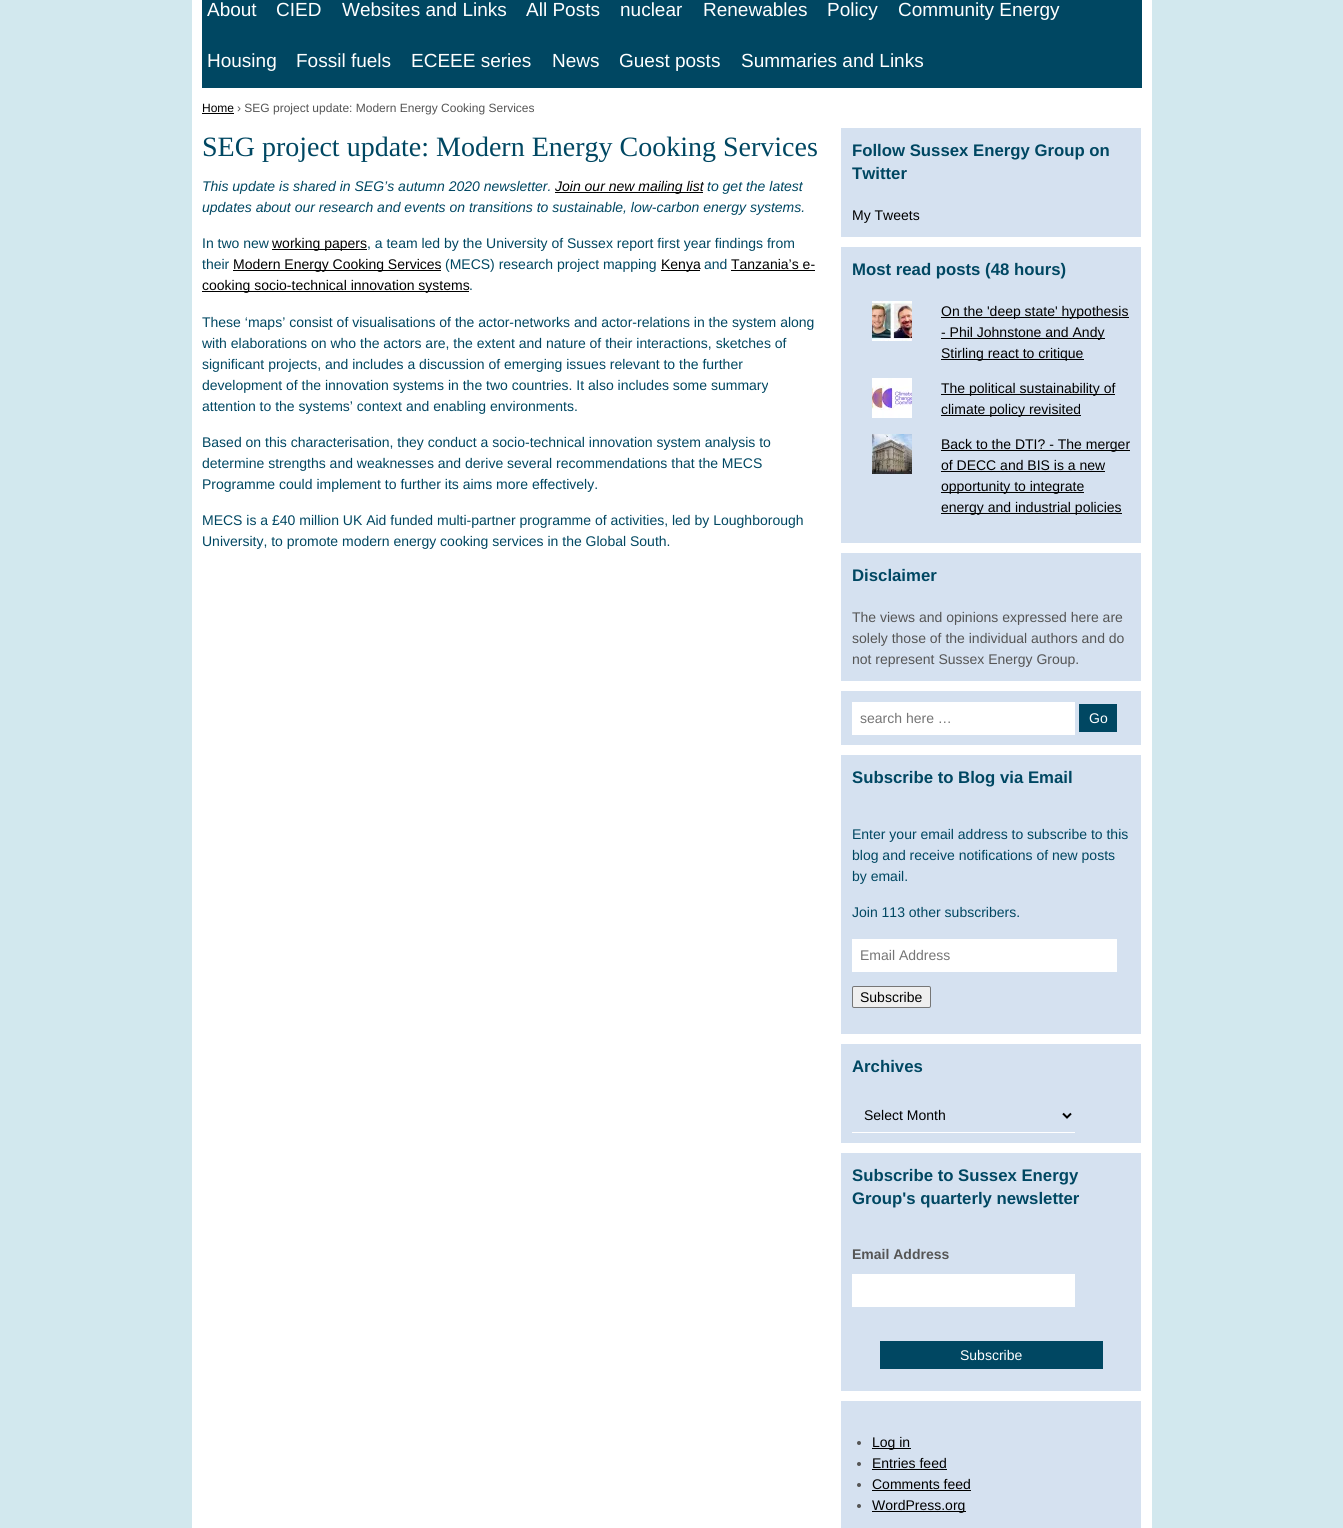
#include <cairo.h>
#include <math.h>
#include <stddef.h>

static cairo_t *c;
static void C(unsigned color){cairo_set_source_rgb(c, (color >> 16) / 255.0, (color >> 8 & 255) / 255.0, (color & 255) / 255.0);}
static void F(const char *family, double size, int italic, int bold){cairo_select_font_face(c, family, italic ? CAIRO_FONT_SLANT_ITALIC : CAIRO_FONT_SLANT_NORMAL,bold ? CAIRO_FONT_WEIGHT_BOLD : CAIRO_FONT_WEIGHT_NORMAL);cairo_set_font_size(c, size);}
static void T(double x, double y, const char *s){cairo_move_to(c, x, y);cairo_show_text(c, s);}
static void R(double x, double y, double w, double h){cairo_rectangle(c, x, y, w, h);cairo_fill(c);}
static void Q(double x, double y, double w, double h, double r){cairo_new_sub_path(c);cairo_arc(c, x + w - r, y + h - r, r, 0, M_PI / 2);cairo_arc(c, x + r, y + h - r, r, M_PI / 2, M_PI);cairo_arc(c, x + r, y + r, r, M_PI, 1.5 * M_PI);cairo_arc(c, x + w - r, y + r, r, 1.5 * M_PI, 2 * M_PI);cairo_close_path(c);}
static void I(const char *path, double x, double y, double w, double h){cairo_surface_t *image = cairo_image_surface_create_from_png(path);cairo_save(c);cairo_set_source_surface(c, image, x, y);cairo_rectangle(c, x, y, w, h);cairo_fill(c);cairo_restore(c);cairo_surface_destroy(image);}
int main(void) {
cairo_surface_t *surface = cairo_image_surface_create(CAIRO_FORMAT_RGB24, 1343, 1528);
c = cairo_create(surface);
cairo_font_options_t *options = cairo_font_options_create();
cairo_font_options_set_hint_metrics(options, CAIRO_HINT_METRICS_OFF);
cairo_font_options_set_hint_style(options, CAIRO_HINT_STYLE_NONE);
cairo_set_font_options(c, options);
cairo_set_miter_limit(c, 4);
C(0xd2e8ee);
cairo_paint(c);
C(0xffffff);
R(192,0,960,1528);
C(0x004762);
R(202,0,940,88);
F("Liberation Sans",19,0,0);
C(0xffffff);
T(207,16,"About");
T(276,16,"CIED");
T(342,16,"Websites and Links");
T(526,16,"All Posts");
T(620,16,"nuclear");
T(703,16,"Renewables");
T(827,16,"Policy");
T(898,16,"Community Energy");
T(207,67,"Housing");
T(296,67,"Fossil fuels");
T(411,67,"ECEEE series");
T(552,67,"News");
T(619,67,"Guest posts");
T(741,67,"Summaries and Links");
F("Liberation Sans",12,0,0);
C(0x000000);
T(202,112,"Home");
R(202,113,32,1);
C(0x555555);
T(237,112,"› SEG project update: Modern Energy Cooking Services");
F("Liberation Serif",28,0,0);
C(0x004762);
T(202,156,"SEG project update: Modern Energy Cooking Services");
F("Liberation Sans",14,1,0);
T(202,191,"This update is shared in SEG’s autumn 2020 newsletter.");
C(0x000000);
R(555,192,148,1);
T(555,191,"Join our new mailing list");
C(0x004762);
T(707,191,"to get the latest");
T(202,212,"updates about our research and events on transitions to sustainable, low-carbon energy systems.");
F("Liberation Sans",14,0,0);
T(202,248,"In two new");
C(0x000000);
R(272,249,95,1);
T(272,248,"working papers");
C(0x004762);
T(367,248,", a team led by the University of Sussex report first year findings from");
T(202,269,"their");
C(0x000000);
R(233,270,208,1);
T(233,269,"Modern Energy Cooking Services");
C(0x004762);
T(445,269,"(MECS) research project mapping");
C(0x000000);
R(661,270,39,1);
T(661,269,"Kenya");
C(0x004762);
T(704,269,"and");
C(0x000000);
T(731,269,"Tanzania’s e-");
R(731,270,84,1);
R(202,291,267,1);
T(202,290,"cooking socio-technical innovation systems");
C(0x004762);
T(469,290,".");
T(202,327,"These ‘maps’ consist of visualisations of the actor-networks and actor-relations in the system along");
T(202,348,"with elaborations on who the actors are, the extent and nature of their interactions, sketches of");
T(202,369,"significant projects, and includes a discussion of emerging issues relevant to the further");
T(202,390,"development of the innovation systems in the two countries. It also includes some summary");
T(202,411,"attention to the systems’ context and enabling environments.");
T(202,447,"Based on this characterisation, they conduct a socio-technical innovation system analysis to");
T(202,468,"determine strengths and weaknesses and derive several recommendations that the MECS");
T(202,489,"Programme could implement to further its aims more effectively.");
T(202,525,"MECS is a £40 million UK Aid funded multi-partner programme of activities, led by Loughborough");
T(202,546,"University, to promote modern energy cooking services in the Global South.");
C(0xd5e1f0);
R(841,128,300,109);
F("Liberation Sans",16.75,0,1);
C(0x004762);
T(852,156,"Follow Sussex Energy Group on");
T(852,179,"Twitter");
F("Liberation Sans",14,0,0);
C(0x000000);
T(852,220,"My Tweets");
C(0xd5e1f0);
R(841,247,300,296);
F("Liberation Sans",16.75,0,1);
C(0x004762);
T(852,275,"Most read posts (48 hours)");
I("1.png",872,301,40,40);
C(0x000000);
R(941,317,188,1);
F("Liberation Sans",14,0,0);
T(941,316,"On the 'deep state' hypothesis");
R(941,338,164,1);
T(941,337,"- Phil Johnstone and Andy");
R(941,359,143,1);
T(941,358,"Stirling react to critique");
I("2.png",872,378,40,40);
R(941,394,174,1);
T(941,393,"The political sustainability of");
R(941,415,140,1);
T(941,414,"climate policy revisited");
I("3.png",872,434,40,40);
R(941,450,189,1);
T(941,449,"Back to the DTI? - The merger");
T(941,470,"of DECC and BIS is a new");
R(941,471,164,1);
R(941,492,143,1);
T(941,491,"opportunity to integrate");
R(941,513,181,1);
T(941,512,"energy and industrial policies");
C(0xd5e1f0);
R(841,553,300,128);
F("Liberation Sans",16.75,0,1);
C(0x004762);
T(852,581,"Disclaimer");
F("Liberation Sans",14,0,0);
C(0x555555);
T(852,622,"The views and opinions expressed here are");
T(852,643,"solely those of the individual authors and do");
T(852,664,"not represent Sussex Energy Group.");
C(0xd5e1f0);
R(841,691,300,54);
C(0xffffff);
R(852,702,223,33);
C(0x757575);
T(860,723,"search here …");
C(0x004762);
R(1079,704,38,28);
C(0xffffff);
T(1089,723,"Go");
C(0xd5e1f0);
R(841,755,300,279);
F("Liberation Sans",16.75,0,1);
C(0x004762);
T(852,783,"Subscribe to Blog via Email");
F("Liberation Sans",14,0,0);
T(852,839,"Enter your email address to subscribe to this");
T(852,860,"blog and receive notifications of new posts");
T(852,881,"by email.");
T(852,917,"Join 113 other subscribers.");
C(0xffffff);
R(852,939,265,33);
C(0x757575);
T(860,960,"Email Address");
C(0xefefef);
Q(852.5,986.5,78,21,1.5);
cairo_fill_preserve(c);
C(0x767676);
cairo_set_line_width(c,1);
cairo_stroke(c);
C(0x000000);
T(860,1002,"Subscribe");
C(0xd5e1f0);
R(841,1044,300,99);
F("Liberation Sans",16.75,0,1);
C(0x004762);
T(852,1072,"Archives");
C(0xffffff);
R(852,1132,223,1);
cairo_new_path(c);
cairo_move_to(c,1063,1113.5);
cairo_line_to(c,1067,1117.5);
cairo_line_to(c,1071,1113.5);
C(0x000000);
cairo_set_line_width(c,2);
cairo_stroke(c);
F("Liberation Sans",14,0,0);
T(864,1120,"Select Month");
C(0xd5e1f0);
R(841,1153,300,238);
F("Liberation Sans",16.75,0,1);
C(0x004762);
T(852,1181,"Subscribe to Sussex Energy");
T(852,1204,"Group's quarterly newsletter");
F("Liberation Sans",14,0,1);
C(0x555555);
T(852,1259,"Email Address");
C(0xffffff);
R(852,1274,223,33);
C(0x004762);
R(880,1341,223,28);
F("Liberation Sans",14,0,0);
C(0xffffff);
T(960,1360,"Subscribe");
C(0xd5e1f0);
R(841,1401,300,127);
C(0x555555);
cairo_new_path(c);
cairo_arc(c,859,1443,2,0,2 * M_PI);
cairo_fill(c);
C(0x000000);
R(872,1448,39,1);
T(872,1447,"Log in");
C(0x555555);
cairo_new_path(c);
cairo_arc(c,859,1464,2,0,2 * M_PI);
cairo_fill(c);
C(0x000000);
T(872,1468,"Entries feed");
R(872,1469,75,1);
C(0x555555);
cairo_new_path(c);
cairo_arc(c,859,1485,2,0,2 * M_PI);
cairo_fill(c);
C(0x000000);
T(872,1489,"Comments feed");
R(872,1490,99,1);
C(0x555555);
cairo_new_path(c);
cairo_arc(c,859,1506,2,0,2 * M_PI);
cairo_fill(c);
C(0x000000);
R(872,1511,94,1);
T(872,1510,"WordPress.org");
cairo_surface_write_to_png(surface, "o.png");
cairo_font_options_destroy(options);
cairo_destroy(c);
cairo_surface_destroy(surface);
return 0;
}
